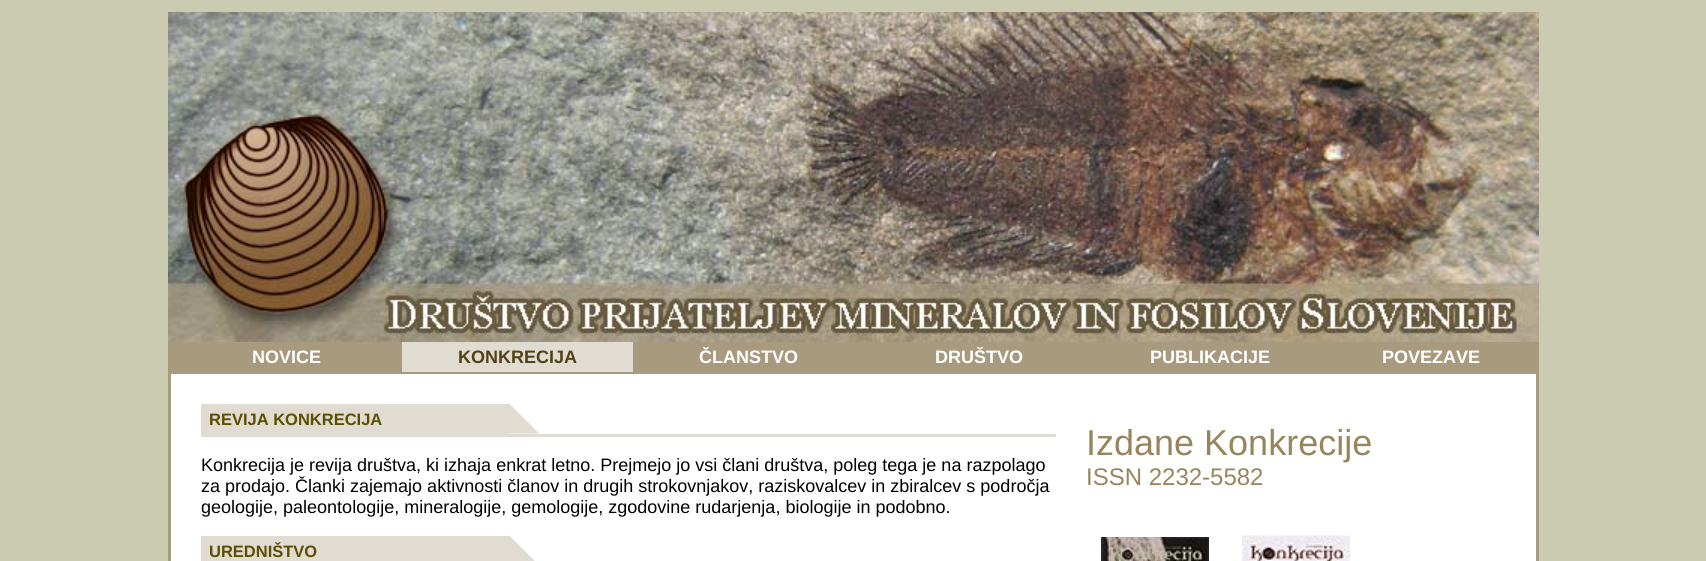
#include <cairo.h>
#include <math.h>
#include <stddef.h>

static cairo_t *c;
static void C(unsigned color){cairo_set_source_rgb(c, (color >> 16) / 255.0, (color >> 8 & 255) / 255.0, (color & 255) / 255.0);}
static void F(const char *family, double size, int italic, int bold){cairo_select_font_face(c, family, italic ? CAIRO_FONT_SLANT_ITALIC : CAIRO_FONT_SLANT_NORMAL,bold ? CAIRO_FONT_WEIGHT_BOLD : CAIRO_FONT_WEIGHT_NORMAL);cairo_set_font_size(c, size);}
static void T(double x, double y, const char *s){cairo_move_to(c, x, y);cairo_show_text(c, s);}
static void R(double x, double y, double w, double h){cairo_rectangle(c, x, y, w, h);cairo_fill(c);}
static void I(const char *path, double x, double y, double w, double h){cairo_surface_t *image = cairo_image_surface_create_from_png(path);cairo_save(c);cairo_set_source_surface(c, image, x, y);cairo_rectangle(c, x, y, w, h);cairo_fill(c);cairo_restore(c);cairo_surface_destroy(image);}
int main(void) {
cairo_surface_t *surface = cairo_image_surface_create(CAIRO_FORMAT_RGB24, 1706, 561);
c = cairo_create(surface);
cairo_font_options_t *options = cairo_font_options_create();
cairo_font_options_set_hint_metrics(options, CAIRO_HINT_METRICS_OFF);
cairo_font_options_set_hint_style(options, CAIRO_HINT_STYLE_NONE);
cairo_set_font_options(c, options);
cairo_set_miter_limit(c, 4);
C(0xcbcbb1);
cairo_paint(c);
I("1.png",168,12,1371,330);
C(0xa79a7e);
R(168,342,234,30);
R(633,342,906,30);
F("Liberation Sans",18,0,1);
C(0xffffff);
T(699,363,"ČLANSTVO");
T(935,363,"DRUŠTVO");
T(252,363,"NOVICE");
C(0xe1dcd2);
R(402,342,231,30);
C(0x504216);
T(458,363,"KONKRECIJA");
C(0xffffff);
T(1150,363,"PUBLIKACIJE");
T(1382,363,"POVEZAVE");
C(0xa79a7e);
R(168,372,1371,2);
R(168,374,3,187);
C(0xffffff);
R(171,374,1365,187);
C(0xe1dcd2);
R(201,404,308,30);
I("2.png",508,403,31,31);
F("Liberation Sans",16.5,0,1);
C(0x5b4e00);
T(209,425,"REVIJA KONKRECIJA");
C(0xe1dcd2);
R(201,434,855,3);
F("Liberation Sans",18,0,0);
C(0x000000);
T(201,471,"Konkrecija je revija društva, ki izhaja enkrat letno. Prejmejo jo vsi člani društva, poleg tega je na razpolago");
T(201,492,"za prodajo. Članki zajemajo aktivnosti članov in drugih strokovnjakov, raziskovalcev in zbiralcev s področja");
T(201,513,"geologije, paleontologije, mineralogije, gemologije, zgodovine rudarjenja, biologije in podobno.");
C(0xe1dcd2);
R(201,536,308,25);
I("3.png",508,535,27,26);
F("Liberation Sans",16.5,0,1);
C(0x5b4e00);
T(209,557,"UREDNIŠTVO");
F("Liberation Sans",36,0,0);
C(0x98855c);
T(1086,455,"Izdane Konkrecije");
F("Liberation Sans",24,0,0);
T(1086,485,"ISSN 2232-5582");
I("4.png",1101,537,108,24);
I("5.png",1242,535,108,26);
C(0xa79a7e);
R(1536,374,3,187);
cairo_surface_write_to_png(surface, "o.png");
cairo_font_options_destroy(options);
cairo_destroy(c);
cairo_surface_destroy(surface);
return 0;
}
